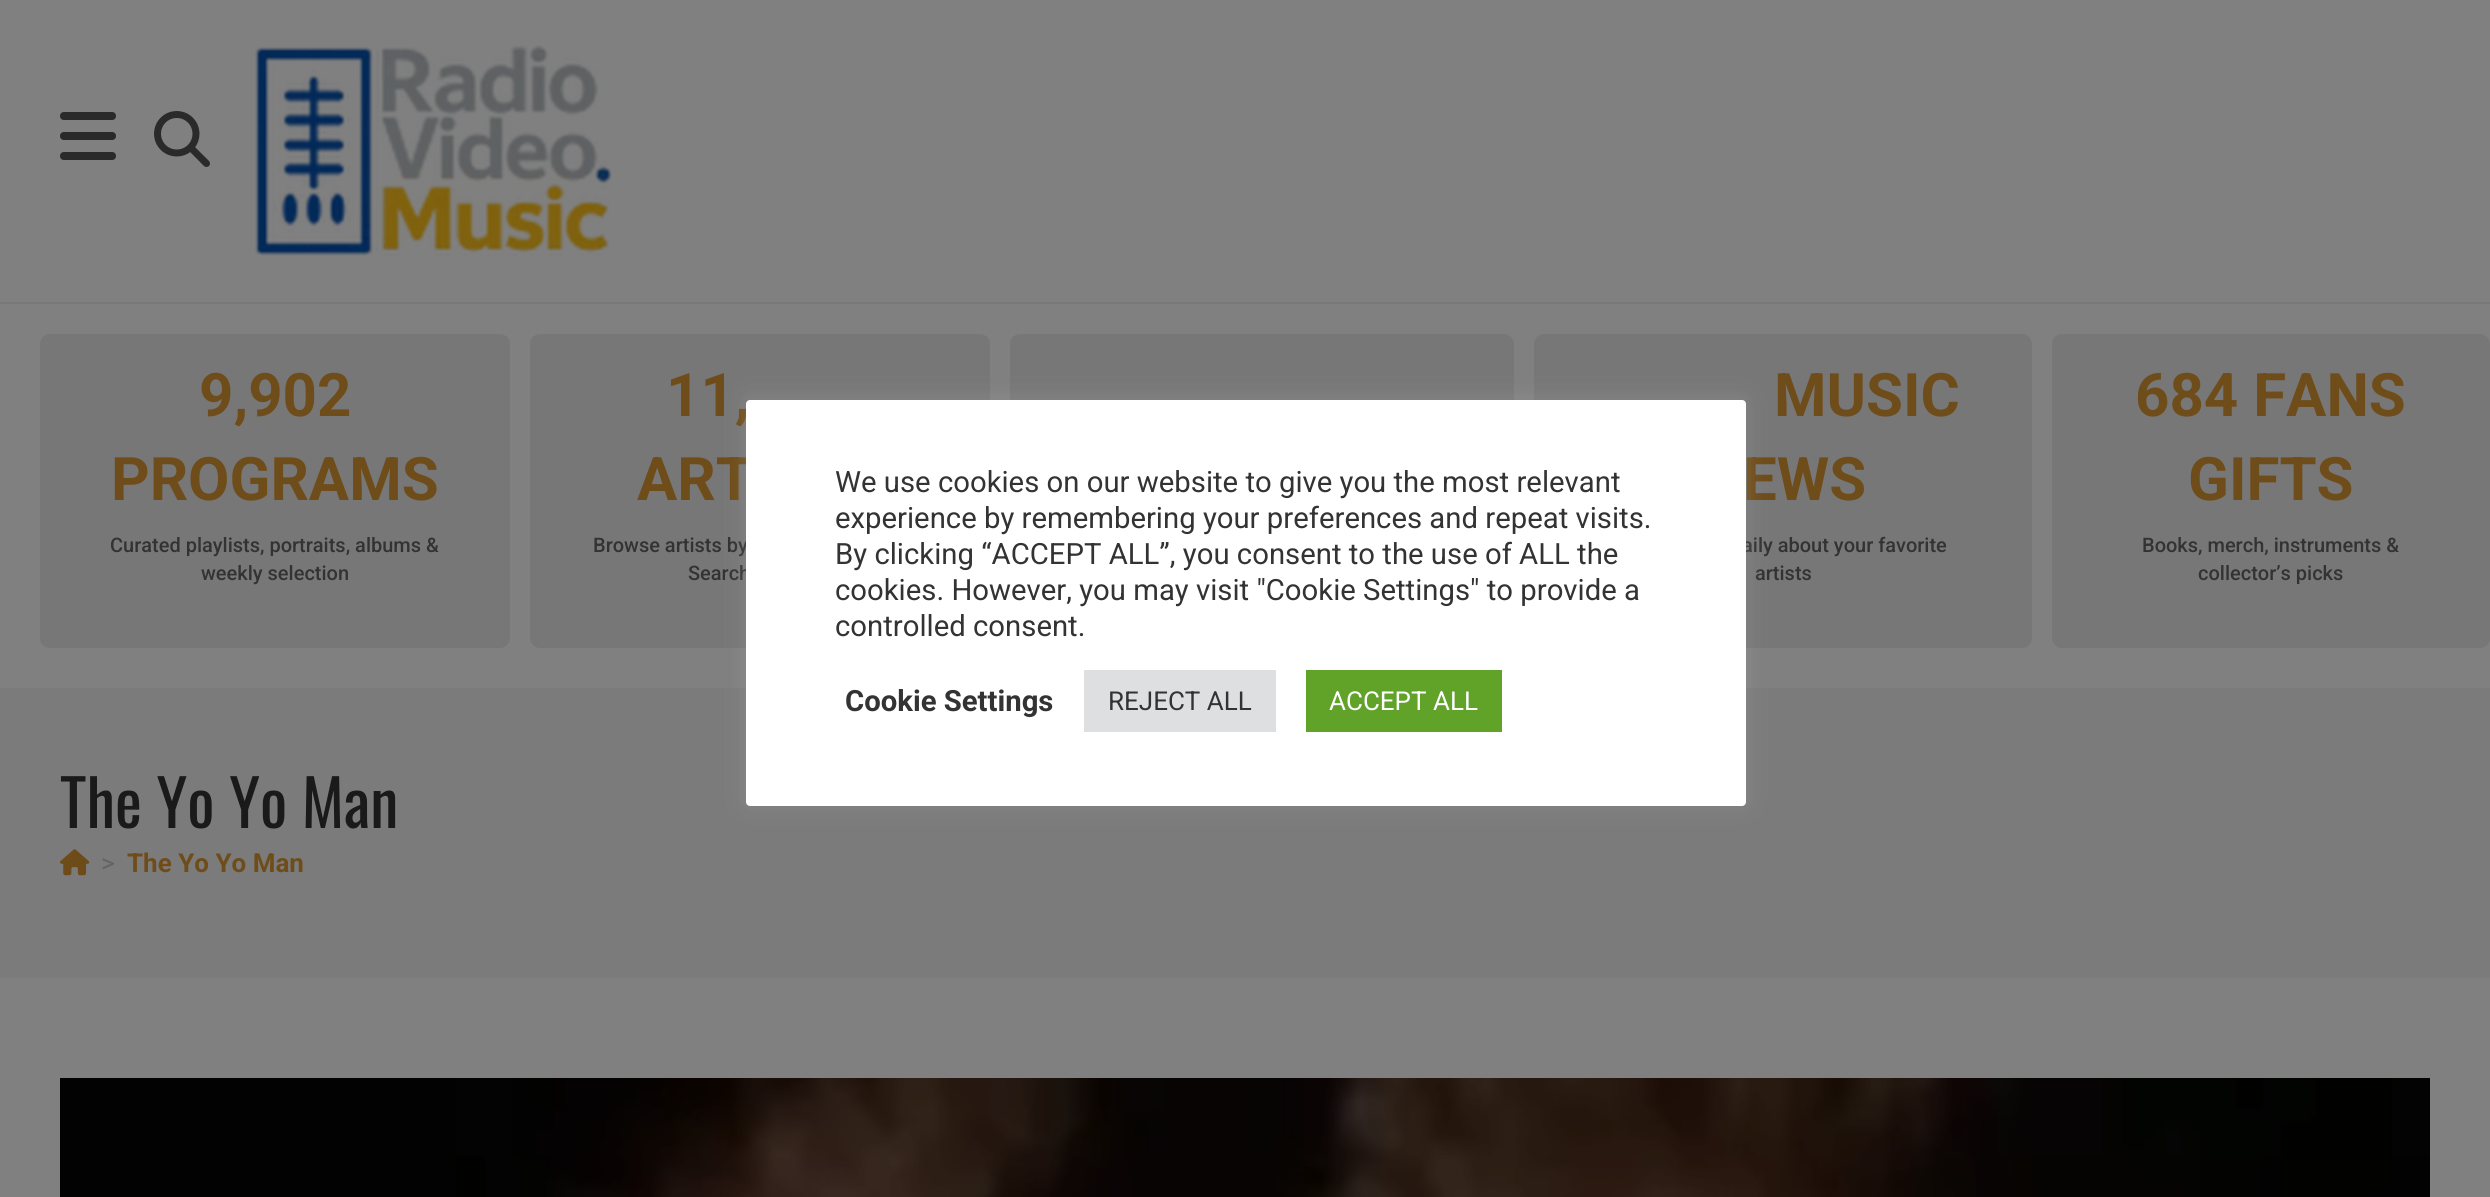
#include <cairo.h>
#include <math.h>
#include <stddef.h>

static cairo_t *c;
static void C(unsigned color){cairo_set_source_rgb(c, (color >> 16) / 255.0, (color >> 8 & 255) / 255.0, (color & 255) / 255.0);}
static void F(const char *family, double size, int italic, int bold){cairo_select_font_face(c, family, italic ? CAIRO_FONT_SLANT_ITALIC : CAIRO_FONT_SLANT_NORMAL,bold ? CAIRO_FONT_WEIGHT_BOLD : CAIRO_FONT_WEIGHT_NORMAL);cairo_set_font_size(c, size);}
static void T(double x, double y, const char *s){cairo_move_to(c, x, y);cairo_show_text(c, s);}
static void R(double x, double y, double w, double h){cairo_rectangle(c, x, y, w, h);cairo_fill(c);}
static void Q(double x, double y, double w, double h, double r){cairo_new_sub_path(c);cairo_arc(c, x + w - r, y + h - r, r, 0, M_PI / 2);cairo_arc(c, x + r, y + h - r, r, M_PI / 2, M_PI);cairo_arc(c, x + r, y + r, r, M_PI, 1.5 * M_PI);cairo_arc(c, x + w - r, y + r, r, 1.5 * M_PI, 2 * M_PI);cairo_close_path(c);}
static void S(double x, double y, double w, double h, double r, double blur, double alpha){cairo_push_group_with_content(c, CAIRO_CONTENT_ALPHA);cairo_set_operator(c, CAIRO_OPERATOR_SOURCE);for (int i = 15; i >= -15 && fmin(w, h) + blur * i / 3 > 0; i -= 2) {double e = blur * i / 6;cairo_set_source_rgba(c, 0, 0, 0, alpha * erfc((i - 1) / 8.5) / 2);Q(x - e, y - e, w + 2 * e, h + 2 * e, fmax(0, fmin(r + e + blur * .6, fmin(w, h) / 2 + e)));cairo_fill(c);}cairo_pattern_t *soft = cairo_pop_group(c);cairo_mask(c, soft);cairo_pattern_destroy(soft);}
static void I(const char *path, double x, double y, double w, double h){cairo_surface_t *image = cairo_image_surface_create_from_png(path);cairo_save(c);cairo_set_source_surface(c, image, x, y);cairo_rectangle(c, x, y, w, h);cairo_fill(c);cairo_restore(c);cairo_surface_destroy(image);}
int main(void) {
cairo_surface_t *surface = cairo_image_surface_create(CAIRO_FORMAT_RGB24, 2490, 1197);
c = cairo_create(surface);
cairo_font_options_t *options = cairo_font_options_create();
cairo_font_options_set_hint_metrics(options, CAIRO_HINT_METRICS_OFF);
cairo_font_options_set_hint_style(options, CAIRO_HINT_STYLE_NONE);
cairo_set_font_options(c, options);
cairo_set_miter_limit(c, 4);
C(0x808080);
cairo_paint(c);
C(0x797979);
R(0,302,2490,2);
I("1.png",60,112,56,48);
I("2.png",154,111,56,56);
I("3.png",255,45,357,211);
C(0x777777);
Q(40,334,470,314,10);
cairo_fill(c);
F("Roboto",60,0,1);
C(0x6f4d1a);
T(199,416,"9,902");
T(111,500,"PROGRAMS");
F("Roboto Medium",20,0,0);
C(0x333333);
T(110,552,"Curated playlists, portraits, albums &");
T(201,580,"weekly selection");
C(0x777777);
Q(530,334,460,314,10);
cairo_fill(c);
F("Roboto",60,0,1);
C(0x6f4d1a);
T(666,416,"11,");
T(637,500,"ART");
F("Roboto Medium",20,0,0);
C(0x333333);
T(593,552,"Browse artists by");
T(688,580,"Search");
C(0x777777);
Q(1010,334,504,314,10);
cairo_fill(c);
Q(1534,334,498,314,10);
cairo_fill(c);
F("Roboto",60,0,1);
C(0x6f4d1a);
T(1774,416,"MUSIC");
T(1743,500,"EWS");
F("Roboto Medium",20,0,0);
C(0x333333);
T(1742,552,"aily about your favorite");
T(1755,580,"artists");
C(0x777777);
Q(2052,334,438,314,10);
cairo_fill(c);
F("Roboto",60,0,1);
C(0x6f4d1a);
T(2135,416,"684 FANS");
T(2188,500,"GIFTS");
F("Roboto Medium",20,0,0);
C(0x333333);
T(2142,552,"Books, merch, instruments &");
T(2198,580,"collector’s picks");
C(0x7b7b7b);
R(0,688,2490,290);
F("Oswald",64,0,0);
C(0x1a1a1a);
T(60,828,"The Yo Yo Man");
I("4.png",60,849,30,27);
F("Roboto",26,0,0);
C(0x636363);
T(101,872,">");
F("Roboto",26,0,1);
C(0x6f4d1a);
T(127,872,"The Yo Yo Man");
I("5.png",60,1078,2370,119);
C(0xacabab);
S(746,398,1000,406,4,10,.3);
C(0xffffff);
Q(746,400,1000,406,4);
cairo_fill(c);
F("Roboto",29.3,0,0);
C(0x333333);
T(835,492,"We use cookies on our website to give you the most relevant");
T(835,528,"experience by remembering your preferences and repeat visits.");
T(835,564,"By clicking “ACCEPT ALL”, you consent to the use of ALL the");
T(835,600,"cookies. However, you may visit \"Cookie Settings\" to provide a");
T(835,636,"controlled consent.");
F("Roboto",29.3,0,1);
T(845,711,"Cookie Settings");
C(0xdedfe0);
R(1084,670,192,62);
F("Roboto",26,0,0);
C(0x333333);
T(1108,710,"REJECT ALL");
C(0x61a229);
R(1306,670,196,62);
C(0xffffff);
T(1329,710,"ACCEPT ALL");
cairo_surface_write_to_png(surface, "o.png");
cairo_font_options_destroy(options);
cairo_destroy(c);
cairo_surface_destroy(surface);
return 0;
}
